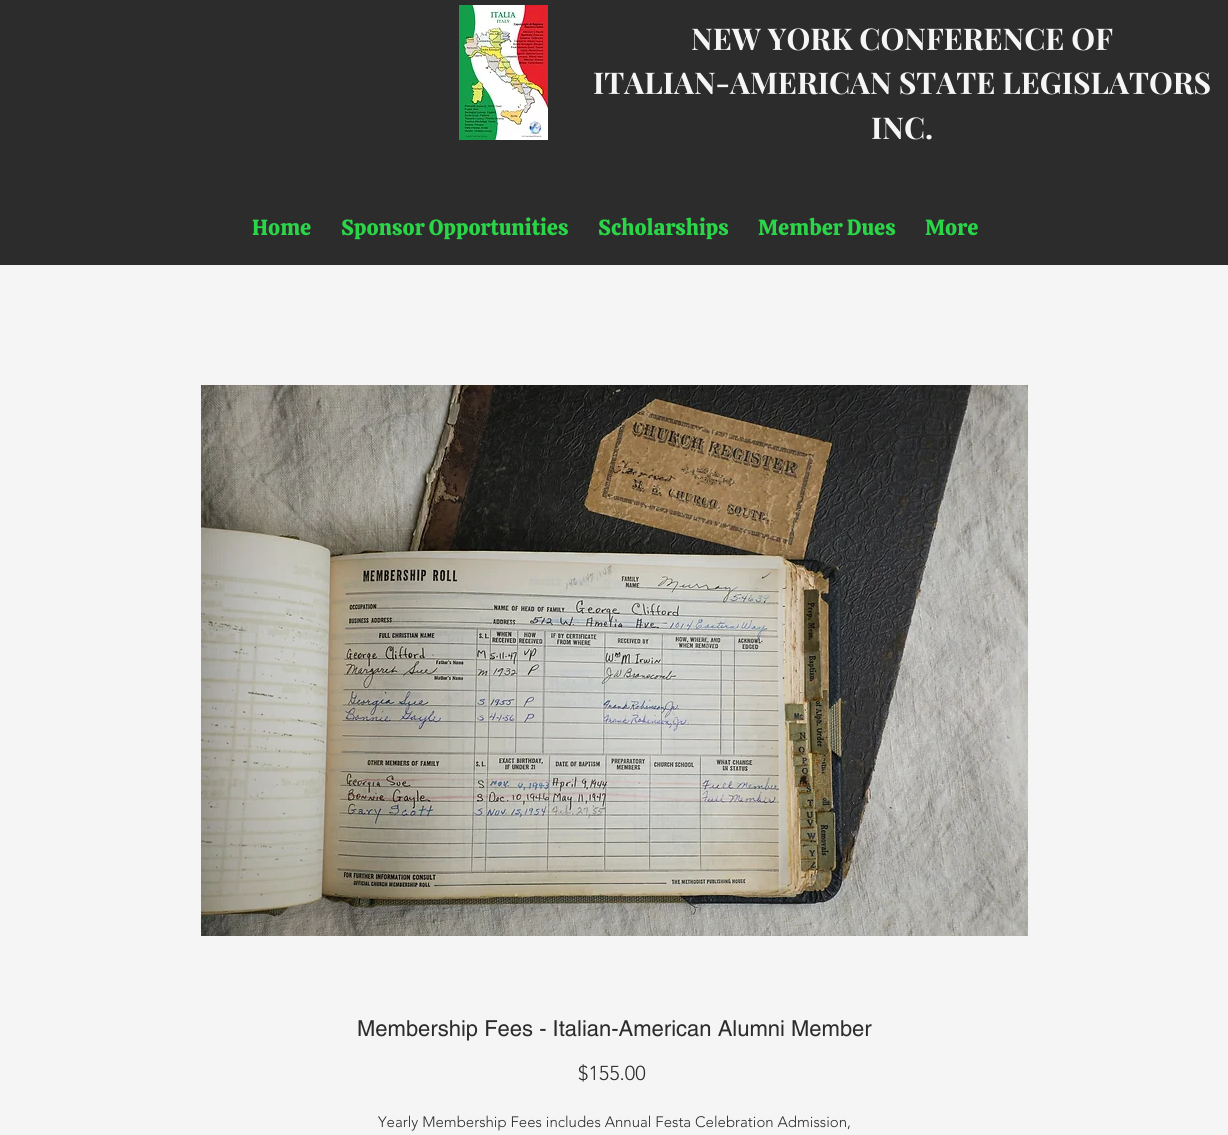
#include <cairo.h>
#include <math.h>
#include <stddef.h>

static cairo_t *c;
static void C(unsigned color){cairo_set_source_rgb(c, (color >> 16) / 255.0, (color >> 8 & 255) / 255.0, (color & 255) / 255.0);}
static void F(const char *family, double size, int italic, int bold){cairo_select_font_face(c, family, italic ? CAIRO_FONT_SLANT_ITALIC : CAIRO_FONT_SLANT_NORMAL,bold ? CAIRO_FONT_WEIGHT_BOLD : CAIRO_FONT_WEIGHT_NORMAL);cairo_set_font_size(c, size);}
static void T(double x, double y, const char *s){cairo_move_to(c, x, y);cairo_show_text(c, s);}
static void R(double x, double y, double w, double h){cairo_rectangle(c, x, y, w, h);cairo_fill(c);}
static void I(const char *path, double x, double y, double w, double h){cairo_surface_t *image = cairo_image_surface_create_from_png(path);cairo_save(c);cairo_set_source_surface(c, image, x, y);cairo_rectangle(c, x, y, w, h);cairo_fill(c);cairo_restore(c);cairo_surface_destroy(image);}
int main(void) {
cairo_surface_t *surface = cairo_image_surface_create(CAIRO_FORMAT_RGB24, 1228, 1135);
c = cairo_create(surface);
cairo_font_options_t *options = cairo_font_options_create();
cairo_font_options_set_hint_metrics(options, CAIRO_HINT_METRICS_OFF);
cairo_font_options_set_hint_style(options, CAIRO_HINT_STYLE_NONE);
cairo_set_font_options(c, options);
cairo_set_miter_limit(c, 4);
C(0xf5f5f5);
cairo_paint(c);
C(0x2c2c2c);
R(0,0,1228,265);
I("1.png",459,5,89,135);
F("Playfair Display",30,0,1);
C(0xf5f5f5);
T(691,50,"NEW YORK CONFERENCE OF");
T(593,94,"ITALIAN-AMERICAN STATE LEGISLATORS");
T(871,139,"INC.");
F("Calistoga",22,0,0);
C(0x2ad548);
T(252,235,"Home");
T(341,235,"Sponsor Opportunities");
T(598,235,"Scholarships");
T(758,235,"Member Dues");
T(925,235,"More");
I("2.png",201,385,827,551);
F("helvetica",22,0,0);
C(0x2c2c2c);
T(357,1036,"Membership Fees - Italian-American Alumni Member");
F("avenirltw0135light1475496 Light",20,0,0);
T(578,1080,"$155.00");
F("avenirltw0135light1475496 Light",15,0,0);
T(378,1127,"Yearly Membership Fees includes Annual Festa Celebration Admission,");
cairo_surface_write_to_png(surface, "o.png");
cairo_font_options_destroy(options);
cairo_destroy(c);
cairo_surface_destroy(surface);
return 0;
}
